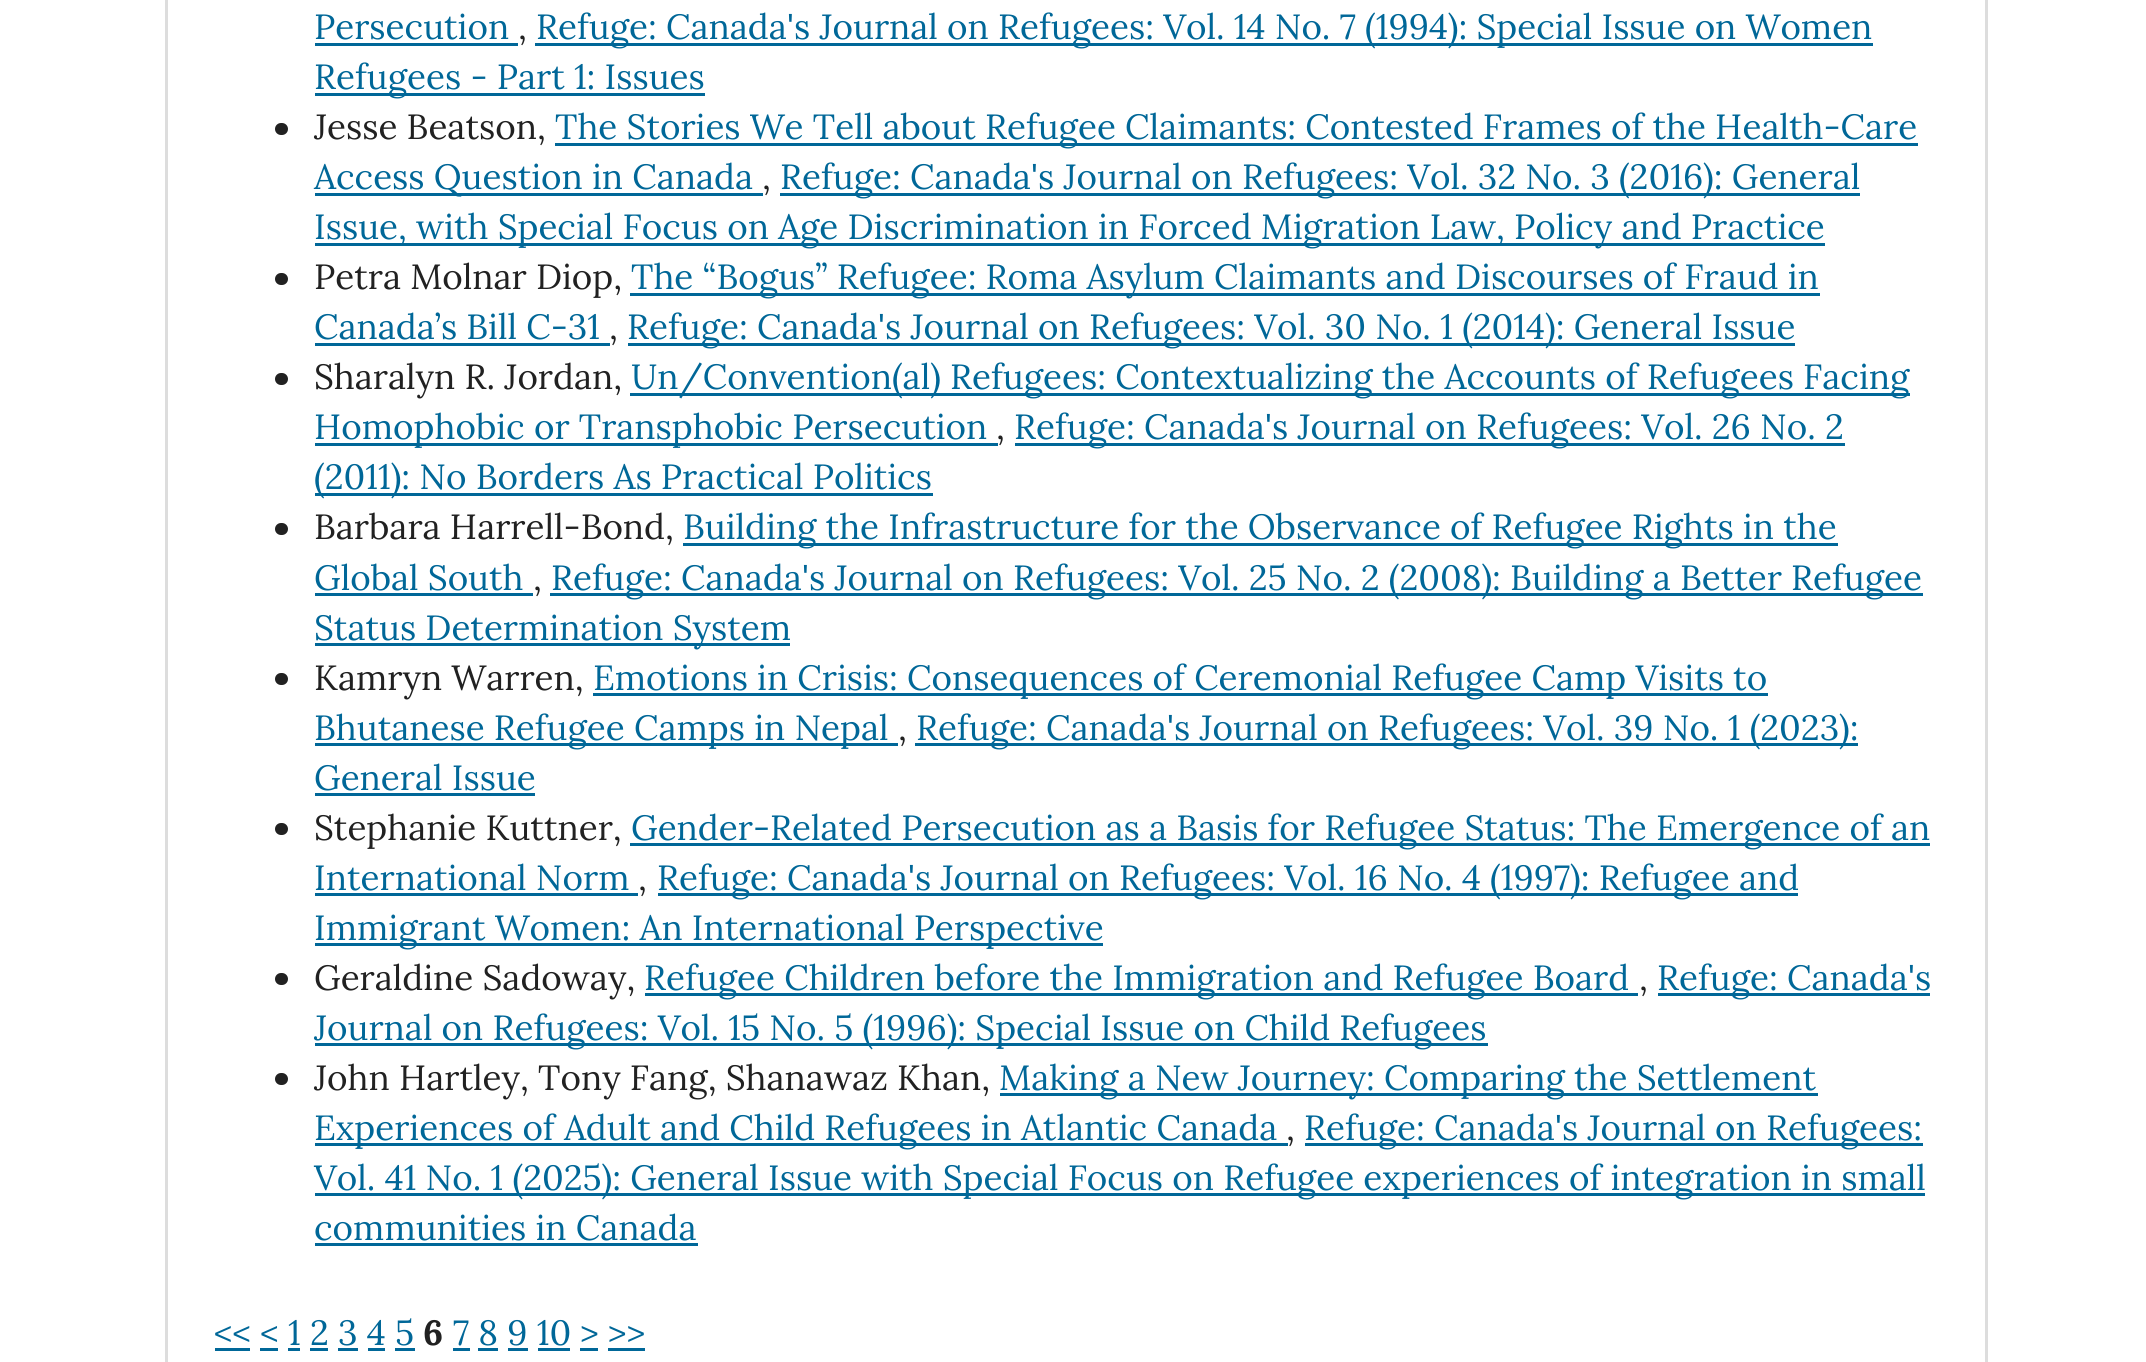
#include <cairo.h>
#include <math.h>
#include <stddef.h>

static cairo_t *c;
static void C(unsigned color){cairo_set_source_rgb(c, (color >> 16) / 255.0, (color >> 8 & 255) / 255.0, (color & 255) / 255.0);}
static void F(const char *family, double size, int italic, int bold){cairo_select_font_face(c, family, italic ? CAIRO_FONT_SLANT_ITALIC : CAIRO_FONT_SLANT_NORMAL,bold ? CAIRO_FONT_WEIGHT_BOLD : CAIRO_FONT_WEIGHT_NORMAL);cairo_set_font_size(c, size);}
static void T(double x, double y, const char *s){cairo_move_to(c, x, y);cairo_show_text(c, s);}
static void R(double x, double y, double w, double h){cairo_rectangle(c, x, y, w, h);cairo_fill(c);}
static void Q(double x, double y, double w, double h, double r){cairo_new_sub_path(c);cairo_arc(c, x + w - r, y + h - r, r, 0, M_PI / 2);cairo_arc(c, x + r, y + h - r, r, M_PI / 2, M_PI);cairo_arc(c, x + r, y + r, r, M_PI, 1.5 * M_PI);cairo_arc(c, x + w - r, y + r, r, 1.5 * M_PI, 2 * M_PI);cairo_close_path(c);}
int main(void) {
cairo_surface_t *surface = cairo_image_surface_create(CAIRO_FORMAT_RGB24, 2146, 1362);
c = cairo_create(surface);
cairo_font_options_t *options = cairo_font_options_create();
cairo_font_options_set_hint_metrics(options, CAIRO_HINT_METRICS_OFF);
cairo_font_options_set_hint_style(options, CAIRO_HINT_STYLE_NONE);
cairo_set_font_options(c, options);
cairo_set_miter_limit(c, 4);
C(0xffffff);
cairo_paint(c);
C(0xdddddd);
R(165,0,3,1362);
F("Lora",35,0,0);
C(0x006798);
T(314,39,"Persecution");
R(315,43,203,3);
C(0x212121);
T(518,39,",");
C(0x006798);
R(535,43,1338,3);
T(536,39,"Refuge: Canada's Journal on Refugees: Vol. 14 No. 7 (1994): Special Issue on Women");
R(315,93,390,3);
T(314,89,"Refugees - Part 1: Issues");
C(0x212121);
Q(275,123,13,12,6);
cairo_fill(c);
T(314,139,"Jesse Beatson,");
C(0x006798);
R(555,143,1363,3);
T(555,139,"The Stories We Tell about Refugee Claimants: Contested Frames of the Health-Care");
R(315,193,448,3);
T(314,189,"Access Question in Canada");
C(0x212121);
T(762,189,",");
C(0x006798);
R(780,193,1080,3);
T(780,189,"Refuge: Canada's Journal on Refugees: Vol. 32 No. 3 (2016): General");
R(315,243,1510,3);
T(314,239,"Issue, with Special Focus on Age Discrimination in Forced Migration Law, Policy and Practice");
C(0x212121);
Q(275,273,13,12,6);
cairo_fill(c);
T(314,289,"Petra Molnar Diop,");
C(0x006798);
R(630,293,1190,3);
T(631,289,"The “Bogus” Refugee: Roma Asylum Claimants and Discourses of Fraud in");
T(314,339,"Canada’s Bill C-31");
R(315,343,295,3);
C(0x212121);
T(609,339,",");
C(0x006798);
R(628,343,1167,3);
T(627,339,"Refuge: Canada's Journal on Refugees: Vol. 30 No. 1 (2014): General Issue");
C(0x212121);
Q(275,373,13,12,6);
cairo_fill(c);
T(314,389,"Sharalyn R. Jordan,");
C(0x006798);
R(630,393,1280,3);
T(631,389,"Un/Convention(al) Refugees: Contextualizing the Accounts of Refugees Facing");
R(315,443,683,3);
T(314,439,"Homophobic or Transphobic Persecution");
C(0x212121);
T(996,439,",");
C(0x006798);
R(1015,443,830,3);
T(1014,439,"Refuge: Canada's Journal on Refugees: Vol. 26 No. 2");
R(315,493,618,3);
T(314,489,"(2011): No Borders As Practical Politics");
C(0x212121);
Q(275,523,13,12,6);
cairo_fill(c);
T(314,539,"Barbara Harrell-Bond,");
C(0x006798);
R(683,543,1155,3);
T(683,539,"Building the Infrastructure for the Observance of Refugee Rights in the");
T(314,590,"Global South");
R(315,593,218,3);
C(0x212121);
T(533,590,",");
C(0x006798);
R(550,593,1373,3);
T(551,590,"Refuge: Canada's Journal on Refugees: Vol. 25 No. 2 (2008): Building a Better Refugee");
R(315,643,475,3);
T(314,640,"Status Determination System");
C(0x212121);
Q(275,673,13,12,6);
cairo_fill(c);
T(314,690,"Kamryn Warren,");
C(0x006798);
R(593,693,1175,3);
T(593,690,"Emotions in Crisis: Consequences of Ceremonial Refugee Camp Visits to");
R(315,743,583,3);
T(314,740,"Bhutanese Refugee Camps in Nepal");
C(0x212121);
T(898,740,",");
C(0x006798);
R(915,743,943,3);
T(916,740,"Refuge: Canada's Journal on Refugees: Vol. 39 No. 1 (2023):");
T(314,790,"General Issue");
R(315,793,220,3);
C(0x212121);
Q(275,823,13,12,6);
cairo_fill(c);
T(314,840,"Stephanie Kuttner,");
C(0x006798);
R(630,843,1300,3);
T(631,840,"Gender-Related Persecution as a Basis for Refugee Status: The Emergence of an");
T(314,890,"International Norm");
R(315,893,323,3);
C(0x212121);
T(638,890,",");
C(0x006798);
R(658,893,1140,3);
T(657,890,"Refuge: Canada's Journal on Refugees: Vol. 16 No. 4 (1997): Refugee and");
R(315,943,788,3);
T(314,940,"Immigrant Women: An International Perspective");
C(0x212121);
Q(275,973,13,12,6);
cairo_fill(c);
T(314,990,"Geraldine Sadoway,");
C(0x006798);
R(645,993,993,3);
T(644,990,"Refugee Children before the Immigration and Refugee Board");
R(1658,993,272,3);
T(1657,990,"Refuge: Canada's");
C(0x212121);
T(1639,990,",");
C(0x006798);
R(315,1043,1173,3);
T(314,1040,"Journal on Refugees: Vol. 15 No. 5 (1996): Special Issue on Child Refugees");
C(0x212121);
Q(275,1073,13,12,6);
cairo_fill(c);
T(314,1090,"John Hartley, Tony Fang, Shanawaz Khan,");
C(0x006798);
R(1000,1093,818,3);
T(999,1090,"Making a New Journey: Comparing the Settlement");
R(315,1143,973,3);
T(314,1140,"Experiences of Adult and Child Refugees in Atlantic Canada");
C(0x212121);
T(1286,1140,",");
C(0x006798);
R(1305,1143,618,3);
T(1304,1140,"Refuge: Canada's Journal on Refugees:");
R(315,1193,1610,3);
T(314,1190,"Vol. 41 No. 1 (2025): General Issue with Special Focus on Refugee experiences of integration in small");
T(314,1240,"communities in Canada");
R(315,1243,383,3);
T(214,1345,"<< < 1 2 3 4 5");
R(215,1348,35,3);
F("Lora",35,0,1);
C(0x212121);
T(423,1345,"6");
F("Lora",35,0,0);
C(0x006798);
T(453,1345,"7 8 9 10 > >>");
R(453,1348,17,3);
R(260,1348,18,3);
R(288,1348,12,3);
R(310,1348,18,3);
R(338,1348,20,3);
R(368,1348,17,3);
R(395,1348,20,3);
R(478,1348,20,3);
R(508,1348,20,3);
R(538,1348,32,3);
R(580,1348,18,3);
R(608,1348,37,3);
C(0xdddddd);
R(1985,0,3,1362);
cairo_surface_write_to_png(surface, "o.png");
cairo_font_options_destroy(options);
cairo_destroy(c);
cairo_surface_destroy(surface);
return 0;
}
